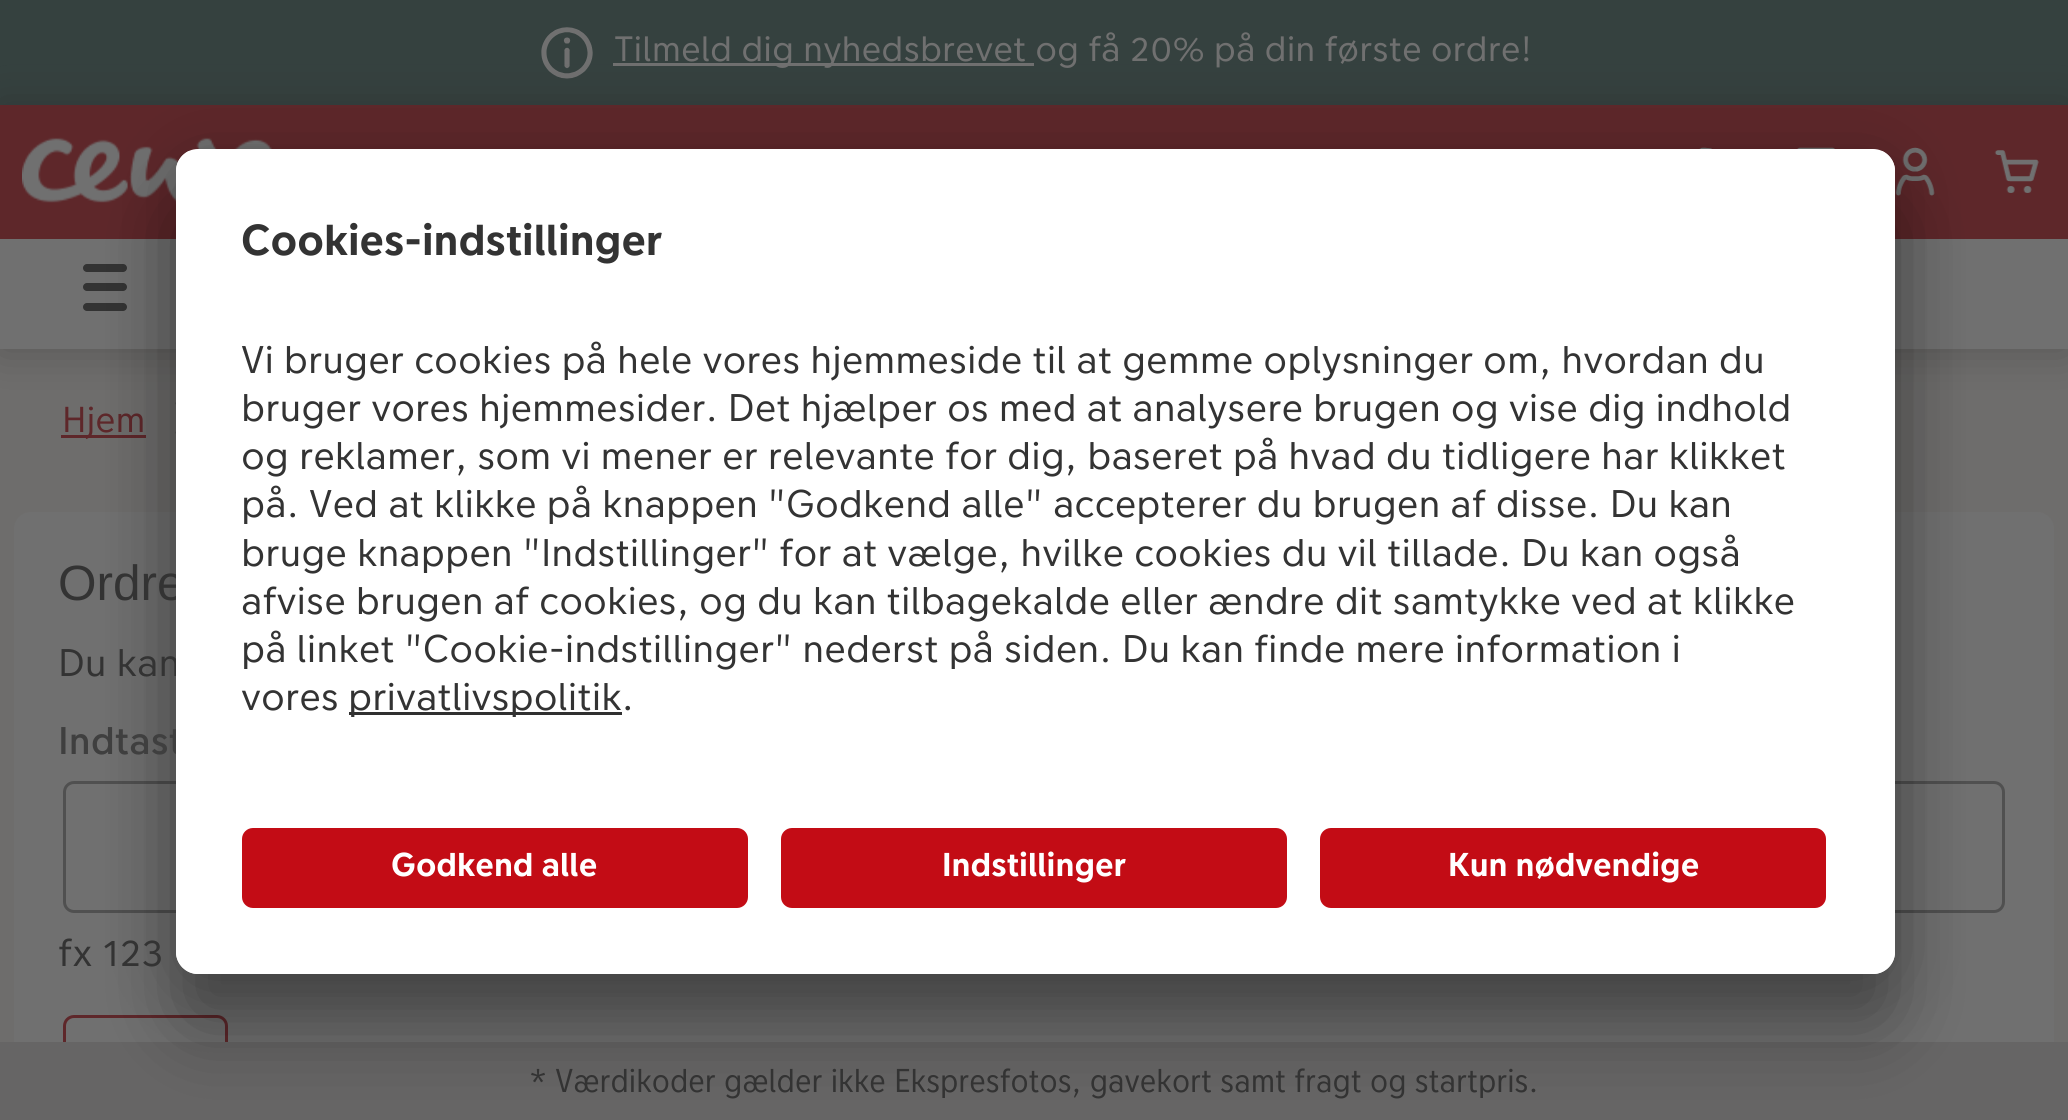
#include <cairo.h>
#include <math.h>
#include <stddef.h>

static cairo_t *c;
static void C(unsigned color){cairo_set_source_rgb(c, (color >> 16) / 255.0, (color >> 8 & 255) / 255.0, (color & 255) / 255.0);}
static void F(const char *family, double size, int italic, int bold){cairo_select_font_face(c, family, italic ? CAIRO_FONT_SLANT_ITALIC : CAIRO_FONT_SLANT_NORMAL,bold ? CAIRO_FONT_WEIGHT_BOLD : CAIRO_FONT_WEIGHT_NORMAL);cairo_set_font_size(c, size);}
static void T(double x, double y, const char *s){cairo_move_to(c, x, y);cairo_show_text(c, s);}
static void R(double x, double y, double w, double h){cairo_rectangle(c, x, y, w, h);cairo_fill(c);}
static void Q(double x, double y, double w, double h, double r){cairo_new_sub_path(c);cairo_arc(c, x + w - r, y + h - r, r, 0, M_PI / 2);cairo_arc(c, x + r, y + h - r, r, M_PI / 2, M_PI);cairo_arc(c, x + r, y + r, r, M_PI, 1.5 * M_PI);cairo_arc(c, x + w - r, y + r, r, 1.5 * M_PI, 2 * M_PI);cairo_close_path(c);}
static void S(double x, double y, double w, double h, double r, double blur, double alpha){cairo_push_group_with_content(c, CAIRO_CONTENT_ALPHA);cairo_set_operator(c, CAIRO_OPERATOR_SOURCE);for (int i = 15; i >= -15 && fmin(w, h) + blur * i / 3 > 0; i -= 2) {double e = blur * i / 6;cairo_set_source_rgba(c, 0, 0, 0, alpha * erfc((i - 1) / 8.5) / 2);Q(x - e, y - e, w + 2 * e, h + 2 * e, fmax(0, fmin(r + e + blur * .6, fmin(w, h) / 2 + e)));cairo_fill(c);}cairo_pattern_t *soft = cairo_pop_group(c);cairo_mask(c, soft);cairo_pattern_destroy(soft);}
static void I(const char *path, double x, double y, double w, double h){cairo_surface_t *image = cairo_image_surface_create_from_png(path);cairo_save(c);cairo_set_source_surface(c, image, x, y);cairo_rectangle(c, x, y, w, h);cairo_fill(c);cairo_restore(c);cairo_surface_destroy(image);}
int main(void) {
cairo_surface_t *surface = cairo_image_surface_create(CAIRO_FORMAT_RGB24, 2068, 1120);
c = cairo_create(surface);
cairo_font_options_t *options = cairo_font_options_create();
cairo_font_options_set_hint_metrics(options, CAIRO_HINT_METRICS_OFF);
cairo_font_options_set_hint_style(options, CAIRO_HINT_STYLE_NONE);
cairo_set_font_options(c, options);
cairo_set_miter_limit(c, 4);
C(0x6e6d6c);
cairo_paint(c);
C(0x35413f);
R(0,0,2068,105);
I("1.png",541,27,52,52);
C(0x707070);
R(613,63,421,3);
F("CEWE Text",35.2,0,0);
T(614,61,"Tilmeld dig nyhedsbrevet og få 20% på din første ordre!");
I("7.png",175,402,1,32);
C(0x242424);
S(0,105,2068,244,0,22,.33);
C(0x5e272a);
R(0,105,2068,134);
I("2.png",22,137,250,66);
I("3.png",1699,147,13,2);
I("4.png",1797,147,38,2);
I("5.png",1895,147,40,49);
I("6.png",1994,150,45,43);
C(0x707070);
R(0,239,176,110);
C(0x333333);
Q(83,264,44,8,4);
cairo_fill(c);
Q(83,283,44,8,4);
cairo_fill(c);
Q(83,303,44,8,4);
cairo_fill(c);
C(0x707070);
R(1895,239,173,110);
C(0x5e272a);
R(61,435,85,3);
F("CEWE Text",36,0,0);
T(62,432,"Hjem");
C(0x707070);
Q(14,512,2040,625,17);
cairo_fill(c);
Q(64.5,782.5,1939,129,9.5);
C(0x505050);
cairo_set_line_width(c,3);
cairo_stroke(c);
Q(64.5,1016.5,162,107,9.5);
C(0x5e272a);
cairo_stroke(c);
C(0x666565);
R(0,1042,2068,78);
C(0x000000);
S(176,204,1719,825,22,38.5,.3);
S(176,162,1719,825,22,36,.22);
F("Liberation Sans",49.5,0,0);
C(0x333333);
T(58,600,"Ordre");
F("CEWE Text",38.5,0,0);
T(58,676,"Du kan");
F("CEWE Text Medium",38.5,0,0);
C(0x3f3f3f);
T(58,754,"Indtast");
C(0xffffff);
Q(176,149,1719,825,22);
cairo_fill(c);
cairo_save(c);
Q(176,149,1719,825,22);
cairo_clip(c);
cairo_new_path(c);
cairo_move_to(c,198,149);
cairo_line_to(c,1873,149);
cairo_curve_to(c,1885,149,1895,159,1895,171);
cairo_line_to(c,1895,806);
cairo_line_to(c,176,806);
cairo_line_to(c,176,171);
cairo_curve_to(c,176,159,186,149,198,149);
cairo_close_path(c);
cairo_clip(c);
R(176,151,1719,655);
cairo_restore(c);
F("CEWE Text",43.25,0,1);
C(0x333333);
T(241,255,"Cookies-indstillinger");
F("CEWE Text",38.5,0,0);
T(241,373,"Vi bruger cookies på hele vores hjemmeside til at gemme oplysninger om, hvordan du");
T(241,421,"bruger vores hjemmesider. Det hjælper os med at analysere brugen og vise dig indhold");
T(241,469,"og reklamer, som vi mener er relevante for dig, baseret på hvad du tidligere har klikket");
T(241,517,"på. Ved at klikke på knappen \"Godkend alle\" accepterer du brugen af disse. Du kan");
T(241,566,"bruge knappen \"Indstillinger\" for at vælge, hvilke cookies du vil tillade. Du kan også");
T(241,614,"afvise brugen af cookies, og du kan tilbagekalde eller ændre dit samtykke ved at klikke");
T(241,662,"på linket \"Cookie-indstillinger\" nederst på siden. Du kan finde mere information i");
T(241,710,"vores");
C(0x303030);
R(349,712,273,3);
C(0x333333);
T(348,710,"privatlivspolitik.");
C(0xffffff);
cairo_new_path(c);
cairo_move_to(c,176,806);
cairo_line_to(c,1895,806);
cairo_line_to(c,1895,952);
cairo_curve_to(c,1895,964,1885,974,1873,974);
cairo_line_to(c,198,974);
cairo_curve_to(c,186,974,176,964,176,952);
cairo_close_path(c);
cairo_fill(c);
C(0xc30c15);
Q(242,828,506,80,11);
cairo_fill(c);
F("CEWE Text",33,0,1);
C(0xffffff);
T(391,876,"Godkend alle");
C(0xc30c15);
Q(781,828,506,80,11);
cairo_fill(c);
C(0xffffff);
T(942,876,"Indstillinger");
C(0xc30c15);
Q(1320,828,506,80,11);
cairo_fill(c);
C(0xffffff);
T(1448,876,"Kun nødvendige");
F("CEWE Text",38.5,0,0);
C(0x333333);
T(58,966,"fx 123");
F("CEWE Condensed",33,0,0);
T(529,1092,"* Værdikoder gælder ikke Ekspresfotos, gavekort samt fragt og startpris.");
cairo_surface_write_to_png(surface, "o.png");
cairo_font_options_destroy(options);
cairo_destroy(c);
cairo_surface_destroy(surface);
return 0;
}
